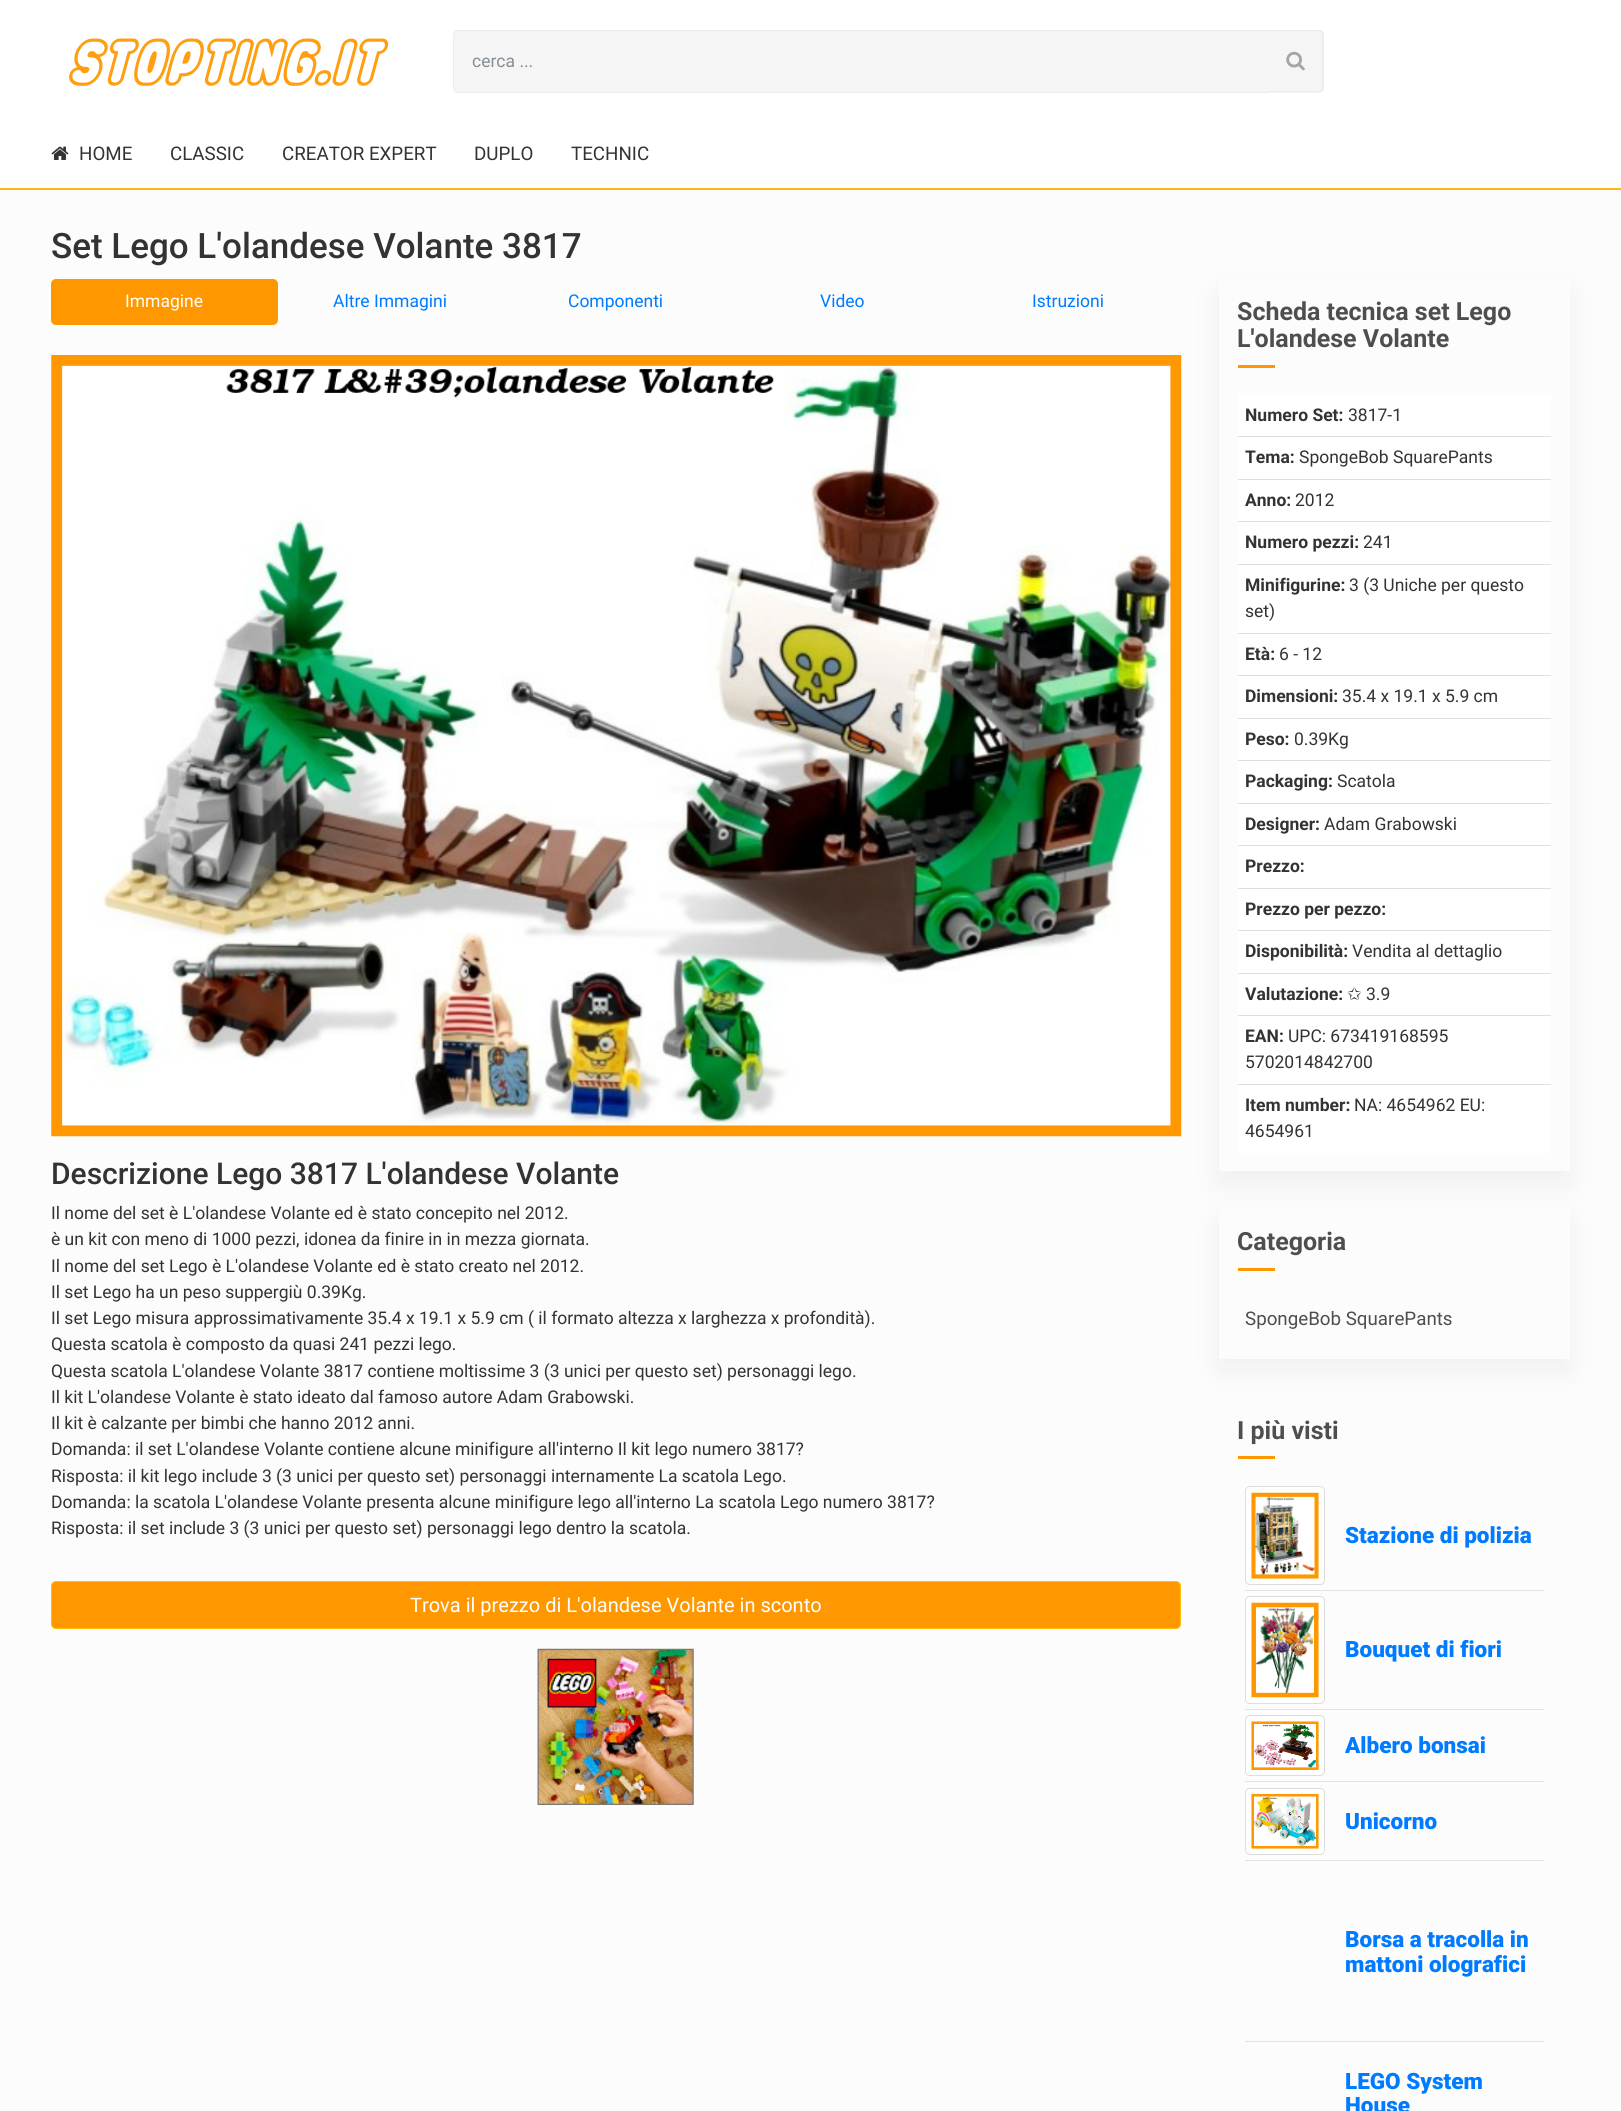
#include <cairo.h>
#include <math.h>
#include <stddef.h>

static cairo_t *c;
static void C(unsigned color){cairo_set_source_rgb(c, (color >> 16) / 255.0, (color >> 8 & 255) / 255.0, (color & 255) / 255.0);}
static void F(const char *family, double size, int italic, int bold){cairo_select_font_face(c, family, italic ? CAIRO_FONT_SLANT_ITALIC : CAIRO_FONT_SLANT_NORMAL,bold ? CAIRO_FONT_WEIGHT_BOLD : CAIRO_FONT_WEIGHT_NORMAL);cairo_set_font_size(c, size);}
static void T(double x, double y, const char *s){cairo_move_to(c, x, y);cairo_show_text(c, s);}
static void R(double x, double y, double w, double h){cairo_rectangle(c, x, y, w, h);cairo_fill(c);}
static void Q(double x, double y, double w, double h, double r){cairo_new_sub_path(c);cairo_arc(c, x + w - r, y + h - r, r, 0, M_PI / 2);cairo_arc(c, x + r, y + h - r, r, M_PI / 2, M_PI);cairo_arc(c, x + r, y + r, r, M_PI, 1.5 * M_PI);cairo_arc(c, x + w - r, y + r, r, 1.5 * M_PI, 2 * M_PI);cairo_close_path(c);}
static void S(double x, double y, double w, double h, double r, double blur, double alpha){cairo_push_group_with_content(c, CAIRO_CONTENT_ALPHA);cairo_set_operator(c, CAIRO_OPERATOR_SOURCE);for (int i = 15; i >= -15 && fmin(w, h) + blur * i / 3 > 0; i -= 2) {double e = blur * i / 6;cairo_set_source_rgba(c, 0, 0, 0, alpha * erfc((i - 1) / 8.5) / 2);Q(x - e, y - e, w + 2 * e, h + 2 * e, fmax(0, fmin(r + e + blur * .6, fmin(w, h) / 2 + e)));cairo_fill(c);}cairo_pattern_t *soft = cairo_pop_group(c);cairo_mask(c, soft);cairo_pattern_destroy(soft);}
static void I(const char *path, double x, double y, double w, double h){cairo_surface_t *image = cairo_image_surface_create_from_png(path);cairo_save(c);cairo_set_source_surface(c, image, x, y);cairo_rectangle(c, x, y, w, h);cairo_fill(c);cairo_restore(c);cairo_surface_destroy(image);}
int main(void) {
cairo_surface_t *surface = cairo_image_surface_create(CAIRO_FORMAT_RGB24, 1621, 2111);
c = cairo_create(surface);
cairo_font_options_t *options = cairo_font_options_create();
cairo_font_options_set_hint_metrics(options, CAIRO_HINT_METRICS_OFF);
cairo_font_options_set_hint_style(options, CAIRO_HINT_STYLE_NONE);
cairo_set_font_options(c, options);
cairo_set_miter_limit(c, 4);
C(0xffffff);
cairo_paint(c);
I("1.png",69,38,320,48);
C(0xf5f5f5);
cairo_new_path(c);
cairo_move_to(c,458,30.5);
cairo_line_to(c,1269.5,30.5);
cairo_line_to(c,1269.5,92.5);
cairo_line_to(c,458,92.5);
cairo_curve_to(c,455.5,92.5,453.5,90.5,453.5,88);
cairo_line_to(c,453.5,35);
cairo_curve_to(c,453.5,32.5,455.5,30.5,458,30.5);
cairo_close_path(c);
cairo_fill_preserve(c);
C(0xececec);
cairo_set_line_width(c,1);
cairo_stroke(c);
F("Roboto",17.5,0,0);
C(0x868e96);
T(472,67,"cerca ...");
C(0xf5f5f5);
cairo_new_path(c);
cairo_move_to(c,1269,30);
cairo_line_to(c,1319,30);
cairo_curve_to(c,1322,30,1324,32,1324,35);
cairo_line_to(c,1324,88);
cairo_curve_to(c,1324,91,1322,93,1319,93);
cairo_line_to(c,1269,93);
cairo_close_path(c);
cairo_fill(c);
C(0xececec);
cairo_set_fill_rule(c,CAIRO_FILL_RULE_EVEN_ODD);
cairo_new_path(c);
cairo_move_to(c,1269,30);
cairo_line_to(c,1319,30);
cairo_curve_to(c,1322,30,1324,32,1324,35);
cairo_line_to(c,1324,88);
cairo_curve_to(c,1324,90,1322,92,1319,92);
cairo_line_to(c,1269,92);
cairo_close_path(c);
cairo_move_to(c,1269,31);
cairo_line_to(c,1319,31);
cairo_curve_to(c,1321,31,1322,33,1322,35);
cairo_line_to(c,1322,88);
cairo_curve_to(c,1322,90,1321,91,1319,91);
cairo_line_to(c,1269,91);
cairo_close_path(c);
cairo_fill(c);
I("2.png",1286,51,19,20);
C(0xfdb813);
R(0,188,1621,2);
I("3.png",51,146,18,14);
F("Roboto",18.75,0,0);
C(0x333333);
T(79,160,"HOME");
T(170,160,"CLASSIC");
T(282,160,"CREATOR EXPERT");
T(474,160,"DUPLO");
T(571,160,"TECHNIC");
C(0xfcfcfc);
R(0,190,1621,1921);
F("Roboto Medium",35,0,0);
C(0x333333);
T(51,258,"Set Lego L'olandese Volante 3817");
C(0xff9800);
Q(51,279,227,46,5);
cairo_fill(c);
F("Roboto",17.5,0,0);
C(0xffffff);
T(125,307,"Immagine");
C(0x007bff);
T(333,307,"Altre Immagini");
T(568,307,"Componenti");
T(820,307,"Video");
T(1032,307,"Istruzioni");
I("4.png",51,355,1131,782);
F("Roboto Medium",30,0,0);
C(0x333333);
T(51,1184,"Descrizione Lego 3817 L'olandese Volante");
F("Roboto",17.5,0,0);
T(51,1219,"Il nome del set è L'olandese Volante ed è stato concepito nel 2012.");
T(51,1245,"è un kit con meno di 1000 pezzi, idonea da finire in in mezza giornata.");
T(51,1272,"Il nome del set Lego è L'olandese Volante ed è stato creato nel 2012.");
T(51,1298,"Il set Lego ha un peso suppergiù 0.39Kg.");
T(51,1324,"Il set Lego misura approssimativamente 35.4 x 19.1 x 5.9 cm ( il formato altezza x larghezza x profondità).");
T(51,1350,"Questa scatola è composto da quasi 241 pezzi lego.");
T(51,1377,"Questa scatola L'olandese Volante 3817 contiene moltissime 3 (3 unici per questo set) personaggi lego.");
T(51,1403,"Il kit L'olandese Volante è stato ideato dal famoso autore Adam Grabowski.");
T(51,1429,"Il kit è calzante per bimbi che hanno 2012 anni.");
T(51,1455,"Domanda: il set L'olandese Volante contiene alcune minifigure all'interno Il kit lego numero 3817?");
T(51,1482,"Risposta: il kit lego include 3 (3 unici per questo set) personaggi internamente La scatola Lego.");
T(51,1508,"Domanda: la scatola L'olandese Volante presenta alcune minifigure lego all'interno La scatola Lego numero 3817?");
T(51,1534,"Risposta: il set include 3 (3 unici per questo set) personaggi lego dentro la scatola.");
C(0xff9800);
Q(51.5,1581.5,1129,47,4.5);
cairo_fill_preserve(c);
C(0xffc107);
cairo_stroke(c);
F("Roboto",20,0,0);
C(0xffffff);
T(410,1612,"Trova il prezzo di L'olandese Volante in sconto");
I("5.png",537,1648,157,157);
cairo_save(c);
cairo_new_path(c);
cairo_move_to(c,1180,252);
cairo_line_to(c,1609,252);
cairo_line_to(c,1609,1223);
cairo_line_to(c,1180,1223);
cairo_close_path(c);
cairo_move_to(c,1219,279);
cairo_line_to(c,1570,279);
cairo_line_to(c,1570,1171);
cairo_line_to(c,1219,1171);
cairo_close_path(c);
cairo_clip(c);
C(0xd2d2d2);
S(1219,291,351,893,0,12.5,.3);
cairo_restore(c);
F("Roboto",25,0,1);
C(0x4e4e4e);
T(1237,320,"Scheda tecnica set Lego");
T(1237,347,"L'olandese Volante");
C(0xff9800);
R(1238,365,37,3);
C(0xffffff);
R(1238,395,313,41);
F("Roboto",17.5,0,1);
C(0x333333);
T(1245,421,"Numero Set:");
F("Roboto",17.5,0,0);
T(1348,421,"3817-1");
C(0xffffff);
R(1238,437,313,42);
C(0xdfdfdf);
R(1238,436,313,1);
F("Roboto",17.5,0,1);
C(0x333333);
T(1245,463,"Tema:");
F("Roboto",17.5,0,0);
T(1299,463,"SpongeBob SquarePants");
C(0xffffff);
R(1238,480,313,41);
C(0xdfdfdf);
R(1238,479,313,1);
F("Roboto",17.5,0,1);
C(0x333333);
T(1245,506,"Anno:");
F("Roboto",17.5,0,0);
T(1295,506,"2012");
C(0xffffff);
R(1238,522,313,42);
C(0xdfdfdf);
R(1238,521,313,1);
F("Roboto",17.5,0,1);
C(0x333333);
T(1245,548,"Numero pezzi:");
F("Roboto",17.5,0,0);
T(1363,548,"241");
C(0xffffff);
R(1238,565,313,68);
C(0xdfdfdf);
R(1238,564,313,1);
F("Roboto",17.5,0,1);
C(0x333333);
T(1245,591,"Minifigurine:");
F("Roboto",17.5,0,0);
T(1349,591,"3 (3 Uniche per questo");
T(1245,617,"set)");
C(0xffffff);
R(1238,634,313,41);
C(0xdfdfdf);
R(1238,633,313,1);
F("Roboto",17.5,0,1);
C(0x333333);
T(1245,660,"Età:");
F("Roboto",17.5,0,0);
T(1279,660,"6 - 12");
C(0xffffff);
R(1238,676,313,42);
C(0xdfdfdf);
R(1238,675,313,1);
F("Roboto",17.5,0,1);
C(0x333333);
T(1245,702,"Dimensioni:");
F("Roboto",17.5,0,0);
T(1342,702,"35.4 x 19.1 x 5.9 cm");
C(0xffffff);
R(1238,719,313,41);
C(0xdfdfdf);
R(1238,718,313,1);
F("Roboto",17.5,0,1);
C(0x333333);
T(1245,745,"Peso:");
F("Roboto",17.5,0,0);
T(1294,745,"0.39Kg");
C(0xffffff);
R(1238,761,313,42);
C(0xdfdfdf);
R(1238,760,313,1);
F("Roboto",17.5,0,1);
C(0x333333);
T(1245,787,"Packaging:");
F("Roboto",17.5,0,0);
T(1337,787,"Scatola");
C(0xffffff);
R(1238,804,313,41);
C(0xdfdfdf);
R(1238,803,313,1);
F("Roboto",17.5,0,1);
C(0x333333);
T(1245,830,"Designer:");
F("Roboto",17.5,0,0);
T(1324,830,"Adam Grabowski");
C(0xffffff);
R(1238,846,313,42);
C(0xdfdfdf);
R(1238,845,313,1);
F("Roboto",17.5,0,1);
C(0x333333);
T(1245,872,"Prezzo:");
C(0xffffff);
R(1238,889,313,41);
C(0xdfdfdf);
R(1238,888,313,1);
C(0x333333);
T(1245,915,"Prezzo per pezzo:");
C(0xffffff);
R(1238,931,313,42);
C(0xdfdfdf);
R(1238,930,313,1);
C(0x333333);
T(1245,957,"Disponibilità:");
F("Roboto",17.5,0,0);
T(1352,957,"Vendita al dettaglio");
C(0xffffff);
R(1238,974,313,41);
C(0xdfdfdf);
R(1238,973,313,1);
F("Roboto",17.5,0,1);
C(0x333333);
T(1245,1000,"Valutazione:");
F("DejaVu Sans",17.5,0,0);
T(1347,1000,"✩");
F("Roboto",17.5,0,0);
T(1366,1000,"3.9");
C(0xffffff);
R(1238,1016,313,68);
C(0xdfdfdf);
R(1238,1015,313,1);
F("Roboto",17.5,0,1);
C(0x333333);
T(1245,1042,"EAN:");
F("Roboto",17.5,0,0);
T(1288,1042,"UPC: 673419168595");
T(1245,1068,"5702014842700");
C(0xffffff);
R(1238,1085,313,68);
C(0xdfdfdf);
R(1238,1084,313,1);
F("Roboto",17.5,0,1);
C(0x333333);
T(1245,1111,"Item number:");
F("Roboto",17.5,0,0);
T(1354,1111,"NA: 4654962 EU:");
T(1245,1137,"4654961");
cairo_save(c);
cairo_new_path(c);
cairo_move_to(c,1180,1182);
cairo_line_to(c,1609,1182);
cairo_line_to(c,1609,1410);
cairo_line_to(c,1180,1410);
cairo_close_path(c);
cairo_move_to(c,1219,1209);
cairo_line_to(c,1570,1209);
cairo_line_to(c,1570,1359);
cairo_line_to(c,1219,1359);
cairo_close_path(c);
cairo_clip(c);
C(0xd2d2d2);
S(1219,1221,351,150,0,12.5,.3);
cairo_restore(c);
F("Roboto",25,0,1);
C(0x4e4e4e);
T(1237,1250,"Categoria");
C(0xff9800);
R(1238,1268,37,3);
F("Roboto",18.75,0,0);
C(0x4e4e4e);
T(1245,1325,"SpongeBob SquarePants");
F("Roboto",25,0,1);
T(1237,1439,"I più visti");
C(0xff9800);
R(1238,1456,37,3);
C(0xffffff);
Q(1245.5,1486.5,79,98,4.5);
cairo_fill_preserve(c);
C(0xdddddd);
cairo_stroke(c);
I("6.png",1251,1492,68,87);
F("Roboto Black",22.5,0,0);
C(0x007bff);
T(1345,1543,"Stazione di polizia");
C(0xe3e3e3);
R(1245,1590,299,1);
C(0xffffff);
Q(1245.5,1596.5,79,107,4.5);
cairo_fill_preserve(c);
C(0xdddddd);
cairo_stroke(c);
I("7.png",1251,1602,68,96);
C(0x007bff);
T(1345,1657,"Bouquet di fiori");
C(0xe3e3e3);
R(1245,1709,299,1);
C(0xffffff);
Q(1245.5,1715.5,79,60,4.5);
cairo_fill_preserve(c);
C(0xdddddd);
cairo_stroke(c);
I("8.png",1251,1721,68,49);
C(0x007bff);
T(1345,1753,"Albero bonsai");
C(0xe3e3e3);
R(1245,1781,299,1);
C(0xffffff);
Q(1245.5,1788.5,79,66,4.5);
cairo_fill_preserve(c);
C(0xdddddd);
cairo_stroke(c);
I("9.png",1251,1793,68,56);
C(0x007bff);
T(1345,1829,"Unicorno");
C(0xe3e3e3);
R(1245,1860,299,1);
C(0x007bff);
T(1345,1947,"Borsa a tracolla in");
T(1345,1972,"mattoni olografici");
C(0xe3e3e3);
R(1245,2041,299,1);
C(0x007bff);
T(1345,2089,"LEGO System");
T(1345,2113,"House");
cairo_surface_write_to_png(surface, "o.png");
cairo_font_options_destroy(options);
cairo_destroy(c);
cairo_surface_destroy(surface);
return 0;
}
